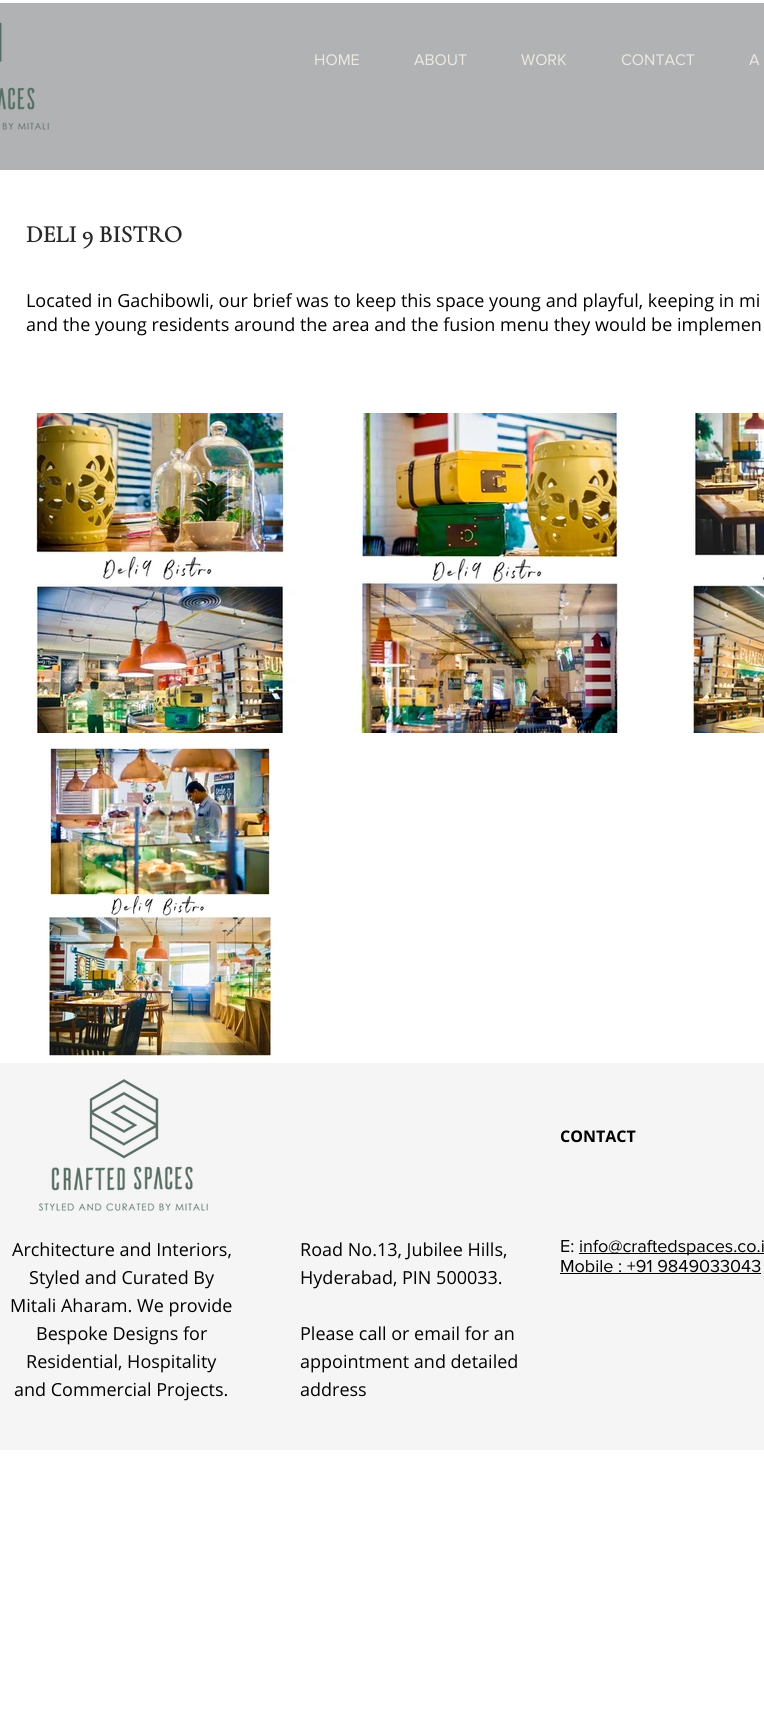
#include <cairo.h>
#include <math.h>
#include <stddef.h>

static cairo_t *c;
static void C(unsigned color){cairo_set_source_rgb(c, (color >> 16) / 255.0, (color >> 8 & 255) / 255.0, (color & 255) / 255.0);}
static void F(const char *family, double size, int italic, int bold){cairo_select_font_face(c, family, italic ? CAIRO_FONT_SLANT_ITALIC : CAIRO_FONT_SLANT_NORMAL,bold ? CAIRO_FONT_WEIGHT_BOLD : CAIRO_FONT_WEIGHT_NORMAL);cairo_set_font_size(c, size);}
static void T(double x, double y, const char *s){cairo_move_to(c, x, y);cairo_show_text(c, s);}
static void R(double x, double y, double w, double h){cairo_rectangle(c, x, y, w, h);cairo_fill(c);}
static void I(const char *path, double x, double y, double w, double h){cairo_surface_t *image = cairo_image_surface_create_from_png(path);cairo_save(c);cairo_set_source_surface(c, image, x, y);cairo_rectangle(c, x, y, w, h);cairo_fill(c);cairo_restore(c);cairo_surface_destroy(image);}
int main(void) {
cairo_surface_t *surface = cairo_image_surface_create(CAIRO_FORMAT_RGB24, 764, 1719);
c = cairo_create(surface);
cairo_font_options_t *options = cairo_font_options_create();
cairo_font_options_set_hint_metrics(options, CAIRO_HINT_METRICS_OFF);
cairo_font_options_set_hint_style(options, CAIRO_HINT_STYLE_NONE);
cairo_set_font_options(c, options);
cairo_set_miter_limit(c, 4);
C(0xffffff);
cairo_paint(c);
C(0xb0b2b3);
R(0,3,764,167);
I("1.png",0,22,49,108);
F("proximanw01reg",16,0,0);
C(0xede9e1);
T(314,65,"HOME");
T(414,65,"ABOUT");
T(521,65,"WORK");
T(621,65,"CONTACT");
T(749,65,"A");
F("Cormorant Garamond",24,0,1);
C(0x292929);
T(26,242,"DELI 9 BISTRO");
F("Open Sans",18,0,0);
C(0x000000);
T(26,307,"Located in Gachibowli, our brief was to keep this space young and playful, keeping in mi");
T(26,331,"and the young residents around the area and the fusion menu they would be implemen");
I("2.png",0,413,320,320);
I("3.png",330,413,320,320);
I("4.png",660,413,104,320);
I("5.png",0,743,320,320);
C(0xf6f5f5);
R(0,1063,764,387);
I("6.png",38,1079,170,132);
F("Open Sans",16,0,1);
C(0x000000);
T(560,1142,"CONTACT");
F("Open Sans",18,0,0);
T(12,1256,"Architecture and Interiors,");
T(29,1284,"Styled and Curated By");
T(10,1312,"Mitali Aharam. We provide");
T(36,1340,"Bespoke Designs for");
T(26,1368,"Residential, Hospitality");
T(14,1396,"and Commercial Projects.");
T(300,1256,"Road No.13, Jubilee Hills,");
T(300,1284,"Hyderabad, PIN 500033.");
T(300,1340,"Please call or email for an");
T(300,1368,"appointment and detailed");
T(300,1396,"address");
F("proximanw01reg",18,0,0);
T(560,1252,"E:");
R(579,1253,185,1);
T(579,1252,"info@craftedspaces.co.i");
T(560,1272,"Mobile : +91 9849033043");
R(560,1273,201,1);
cairo_surface_write_to_png(surface, "o.png");
cairo_font_options_destroy(options);
cairo_destroy(c);
cairo_surface_destroy(surface);
return 0;
}
